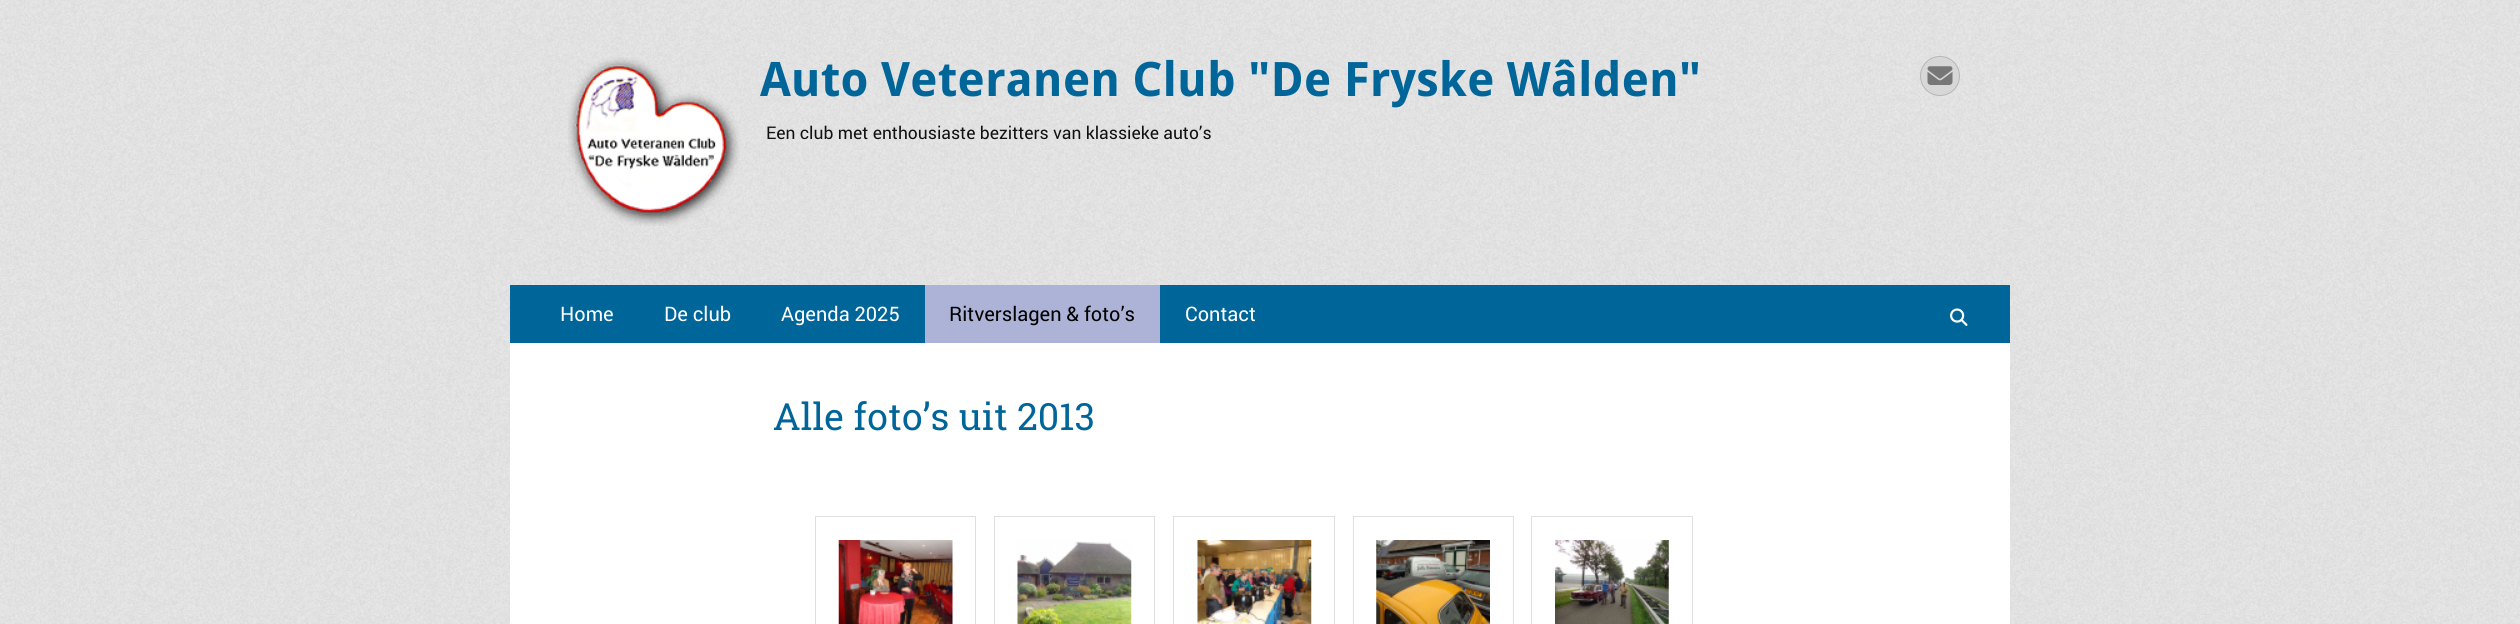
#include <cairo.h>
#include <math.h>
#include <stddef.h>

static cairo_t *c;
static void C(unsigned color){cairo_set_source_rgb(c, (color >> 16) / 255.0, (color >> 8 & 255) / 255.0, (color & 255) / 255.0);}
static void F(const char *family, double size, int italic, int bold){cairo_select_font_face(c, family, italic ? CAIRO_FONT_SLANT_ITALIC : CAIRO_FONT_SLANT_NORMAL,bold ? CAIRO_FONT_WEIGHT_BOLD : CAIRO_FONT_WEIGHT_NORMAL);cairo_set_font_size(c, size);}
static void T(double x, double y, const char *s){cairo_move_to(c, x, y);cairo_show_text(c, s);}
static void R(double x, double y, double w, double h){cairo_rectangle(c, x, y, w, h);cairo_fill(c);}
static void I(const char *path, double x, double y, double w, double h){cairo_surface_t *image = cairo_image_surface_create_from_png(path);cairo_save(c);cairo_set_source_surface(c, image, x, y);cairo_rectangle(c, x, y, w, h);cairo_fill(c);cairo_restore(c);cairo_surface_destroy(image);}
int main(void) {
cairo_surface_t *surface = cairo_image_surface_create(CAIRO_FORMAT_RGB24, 2520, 624);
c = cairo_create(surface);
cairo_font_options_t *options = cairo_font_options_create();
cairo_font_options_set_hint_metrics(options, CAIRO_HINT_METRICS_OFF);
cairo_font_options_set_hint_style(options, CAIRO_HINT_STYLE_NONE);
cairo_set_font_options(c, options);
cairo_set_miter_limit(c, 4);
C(0xffffff);
cairo_paint(c);
I("1.png",0,0,2520,624);
I("2.png",568,57,172,169);
F("Droid Sans",47.5,0,1);
C(0x006599);
T(760,96,"Auto Veteranen Club \"De Fryske Wâlden\"");
F("roboto",17.5,0,0);
C(0x111111);
T(766,139,"Een club met enthousiaste bezitters van klassieke auto’s");
C(0xd7d7d7);
cairo_new_path(c);
cairo_arc(c,1940,76,19.5,0,2 * M_PI);
cairo_fill_preserve(c);
C(0xb6b6b6);
cairo_set_line_width(c,1);
cairo_stroke(c);
I("3.png",1927,66,26,19);
C(0x006599);
R(510,285,1500,58);
F("roboto",20,0,0);
C(0xffffff);
T(560,321,"Home");
T(664,321,"De club");
T(781,321,"Agenda 2025");
C(0xadb3d6);
R(925,285,235,58);
C(0x000000);
T(949,321,"Ritverslagen & foto’s");
C(0xffffff);
T(1185,321,"Contact");
I("4.png",1950,308,18,18);
R(510,343,1500,281);
F("Roboto Slab",37.5,0,0);
C(0x006599);
T(773,430,"Alle foto’s uit 2013");
cairo_rectangle(c,815.5,516.5,160,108);
C(0xdfdfdf);
cairo_stroke(c);
I("5.png",838,540,115,84);
cairo_rectangle(c,994.5,516.5,160,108);
cairo_stroke(c);
I("6.png",1017,541,115,83);
cairo_rectangle(c,1173.5,516.5,161,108);
cairo_stroke(c);
I("7.png",1197,540,115,84);
cairo_rectangle(c,1353.5,516.5,160,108);
cairo_set_source_rgba(c,0.588,0.588,0.588,0.3);
cairo_stroke(c);
I("8.png",1376,540,114,84);
cairo_rectangle(c,1531.5,516.5,161,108);
cairo_stroke(c);
I("9.png",1555,540,114,84);
cairo_surface_write_to_png(surface, "o.png");
cairo_font_options_destroy(options);
cairo_destroy(c);
cairo_surface_destroy(surface);
return 0;
}
